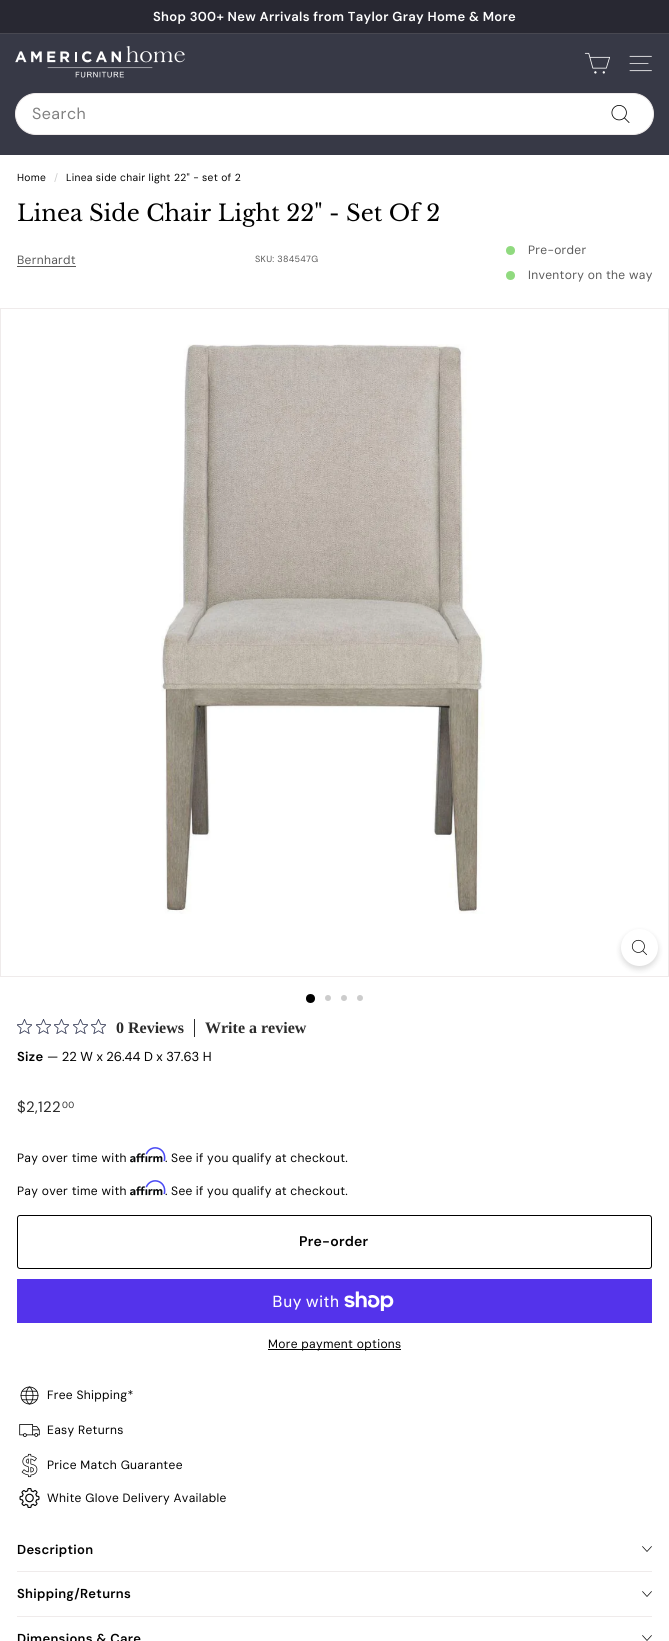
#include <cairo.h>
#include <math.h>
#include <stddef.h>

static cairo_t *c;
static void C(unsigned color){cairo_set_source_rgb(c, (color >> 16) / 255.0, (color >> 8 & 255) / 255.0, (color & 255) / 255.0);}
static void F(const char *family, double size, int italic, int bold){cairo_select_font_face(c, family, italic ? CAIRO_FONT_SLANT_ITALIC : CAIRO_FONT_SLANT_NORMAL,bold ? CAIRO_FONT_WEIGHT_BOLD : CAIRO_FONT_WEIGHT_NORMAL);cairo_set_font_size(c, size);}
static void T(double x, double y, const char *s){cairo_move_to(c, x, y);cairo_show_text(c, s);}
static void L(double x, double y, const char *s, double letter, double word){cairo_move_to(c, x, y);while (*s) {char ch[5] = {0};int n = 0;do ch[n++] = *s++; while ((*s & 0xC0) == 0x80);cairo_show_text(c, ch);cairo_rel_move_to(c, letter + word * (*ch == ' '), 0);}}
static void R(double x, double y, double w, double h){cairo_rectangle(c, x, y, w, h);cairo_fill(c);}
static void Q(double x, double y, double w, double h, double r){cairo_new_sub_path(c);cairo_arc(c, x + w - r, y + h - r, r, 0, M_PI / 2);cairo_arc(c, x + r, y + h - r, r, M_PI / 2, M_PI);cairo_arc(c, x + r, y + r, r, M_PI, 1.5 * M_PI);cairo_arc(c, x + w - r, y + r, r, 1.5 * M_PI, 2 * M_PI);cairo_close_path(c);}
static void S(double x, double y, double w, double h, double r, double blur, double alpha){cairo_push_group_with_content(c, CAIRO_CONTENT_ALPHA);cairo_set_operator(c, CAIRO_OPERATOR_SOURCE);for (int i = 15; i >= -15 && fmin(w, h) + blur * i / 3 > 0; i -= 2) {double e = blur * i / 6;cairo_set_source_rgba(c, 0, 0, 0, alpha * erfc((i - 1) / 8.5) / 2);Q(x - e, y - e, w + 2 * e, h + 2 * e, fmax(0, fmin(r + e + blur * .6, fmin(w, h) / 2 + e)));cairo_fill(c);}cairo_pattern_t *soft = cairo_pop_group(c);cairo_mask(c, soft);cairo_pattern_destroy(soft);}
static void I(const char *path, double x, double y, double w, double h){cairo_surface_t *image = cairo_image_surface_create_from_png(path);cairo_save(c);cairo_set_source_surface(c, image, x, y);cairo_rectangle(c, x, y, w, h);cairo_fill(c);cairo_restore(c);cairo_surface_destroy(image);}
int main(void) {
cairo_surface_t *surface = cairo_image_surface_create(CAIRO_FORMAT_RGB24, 669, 1641);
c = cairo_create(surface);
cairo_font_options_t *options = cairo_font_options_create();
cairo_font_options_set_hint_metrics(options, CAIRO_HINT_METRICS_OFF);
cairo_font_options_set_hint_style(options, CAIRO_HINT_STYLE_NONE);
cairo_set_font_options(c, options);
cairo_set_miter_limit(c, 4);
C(0xffffff);
cairo_paint(c);
C(0x282832);
R(0,0,669,33);
F("DM Sans SemiBold",13,0,0);
C(0xffffff);
L(153,21,"Shop 300+ New Arrivals from Taylor Gray Home & More",.3,0);
C(0x484851);
R(0,33,669,1);
C(0x373946);
R(0,34,669,121);
I("1.png",15,46,170,32);
I("2.png",584,52,26,22);
I("3.png",629,55,23,17);
C(0xffffff);
Q(15.5,93.5,638,41,20.5);
cairo_fill_preserve(c);
C(0xefebeb);
cairo_set_line_width(c,1);
cairo_stroke(c);
F("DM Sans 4",16,0,0);
C(0x808080);
L(32,119,"Search",.5,0);
I("4.png",611,105,19,18);
F("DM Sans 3",10.25,0,0);
C(0x000000);
L(17,181,"Home",.3,0);
C(0xcccccc);
L(54,181,"/",.3,0);
C(0x000000);
L(66,181,"Linea side chair light 22\" - set of 2",.3,0);
F("Libre Baskerville",22.7,0,0);
T(17,221,"Linea Side Chair Light 22\" - Set Of 2");
F("DM Sans 3",12,0,0);
C(0x595959);
L(17,264,"Bernhardt",.3,0);
R(17,266,59,1);
F("DM Sans 3",9,0,0);
L(255,262,"SKU: 384547G",.3,0);
C(0x90da7f);
cairo_new_path(c);
cairo_arc(c,510.5,250.5,4.5,0,2 * M_PI);
cairo_fill(c);
F("DM Sans 3",12,0,0);
C(0x595959);
L(528,254,"Pre-order",.3,0);
C(0x90da7f);
cairo_new_path(c);
cairo_arc(c,510.5,275.5,4.5,0,2 * M_PI);
cairo_fill(c);
C(0x595959);
L(528,279,"Inventory on the way",.3,0);
cairo_rectangle(c,.5,308.5,668,668);
C(0xefebeb);
cairo_stroke(c);
I("5.png",161,344,324,570);
C(0x000000);
S(621,932,37,37,18.5,3,.15);
C(0xffffff);
cairo_arc(c,639.5,947.5,18.5,0,2 * M_PI);
cairo_fill(c);
I("6.png",631,939,16,16);
C(0x000000);
cairo_arc(c,310.5,998.5,4.5,0,2 * M_PI);
cairo_fill(c);
C(0xcccccc);
cairo_arc(c,328,998,3,0,2 * M_PI);
cairo_fill(c);
cairo_arc(c,344,998,3,0,2 * M_PI);
cairo_fill(c);
cairo_arc(c,360,998,3,0,2 * M_PI);
cairo_fill(c);
I("7.png",17,1019,15,15);
I("7.png",36,1019,15,15);
I("7.png",54,1019,15,15);
I("7.png",73,1019,15,15);
I("7.png",91,1019,15,15);
F("Liberation Serif",16,0,1);
C(0x2c2c2c);
T(116,1033,"0 Reviews");
R(194,1019,1,18);
T(205,1033,"Write a review");
F("DM Sans SemiBold",13,0,0);
C(0x000000);
L(17,1061,"Size",.3,0);
F("DM Sans",13,0,0);
T(47,1061,"— 22 W x 26.44 D x 37.63 H");
F("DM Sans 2",15,0,0);
C(0x2c2c2c);
L(17,1112,"$2,122",.3,0);
F("DM Sans 3",9,0,0);
L(62,1108,"00",.3,0);
F("DM Sans 3",12,0,0);
C(0x000000);
L(17,1162,"Pay over time with",.3,0);
I("9.png",130,1153,33,10);
L(165,1162,". See if you qualify at checkout.",.3,-.25);
I("8.png",145,1147,21,15);
L(17,1195,"Pay over time with",.3,0);
I("9.png",130,1186,33,10);
L(165,1195,". See if you qualify at checkout.",.3,-.25);
I("8.png",145,1180,21,15);
Q(17.5,1215.5,634,53,2.5);
cairo_stroke(c);
F("DM Sans 2 SemiBold",14,0,0);
L(299,1246,"Pre-order",.25,0);
C(0x5433eb);
R(17,1279,635,44);
F("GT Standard",16,0,0);
C(0xffffff);
L(272,1307,"Buy with",.3,0);
I("10.png",344,1291,50,20);
C(0x000000);
R(268,1349,133,1);
F("DM Sans 3",12,0,0);
L(268,1348,"More payment options",.3,0);
I("11.png",20,1386,19,19);
L(47,1399,"Free Shipping*",.3,0);
I("12.png",19,1424,21,13);
L(47,1434,"Easy Returns",.3,0);
I("13.png",21,1453,17,25);
L(47,1469,"Price Match Guarantee",.3,0);
I("14.png",19,1488,21,20);
L(47,1502,"White Glove Delivery Available",.3,0);
C(0xefebeb);
R(17,1571,635,1);
F("DM Sans SemiBold",13,0,0);
C(0x000000);
L(17,1554,"Description",.3,0);
cairo_new_path(c);
cairo_move_to(c,642.5,1546.5);
cairo_line_to(c,647,1551.5);
cairo_line_to(c,651.5,1546.5);
cairo_set_line_width(c,.7);
cairo_set_line_cap(c,CAIRO_LINE_CAP_ROUND);
cairo_set_line_join(c,CAIRO_LINE_JOIN_ROUND);
cairo_stroke(c);
C(0xefebeb);
R(17,1616,635,1);
C(0x000000);
L(17,1598,"Shipping/Returns",.3,0);
cairo_new_path(c);
cairo_move_to(c,642.5,1591.5);
cairo_line_to(c,647,1596.5);
cairo_line_to(c,651.5,1591.5);
cairo_stroke(c);
L(17,1643,"Dimensions & Care",.3,0);
cairo_new_path(c);
cairo_move_to(c,642.5,1635.5);
cairo_line_to(c,647,1640.5);
cairo_line_to(c,651.5,1635.5);
cairo_stroke(c);
cairo_surface_write_to_png(surface, "o.png");
cairo_font_options_destroy(options);
cairo_destroy(c);
cairo_surface_destroy(surface);
return 0;
}
